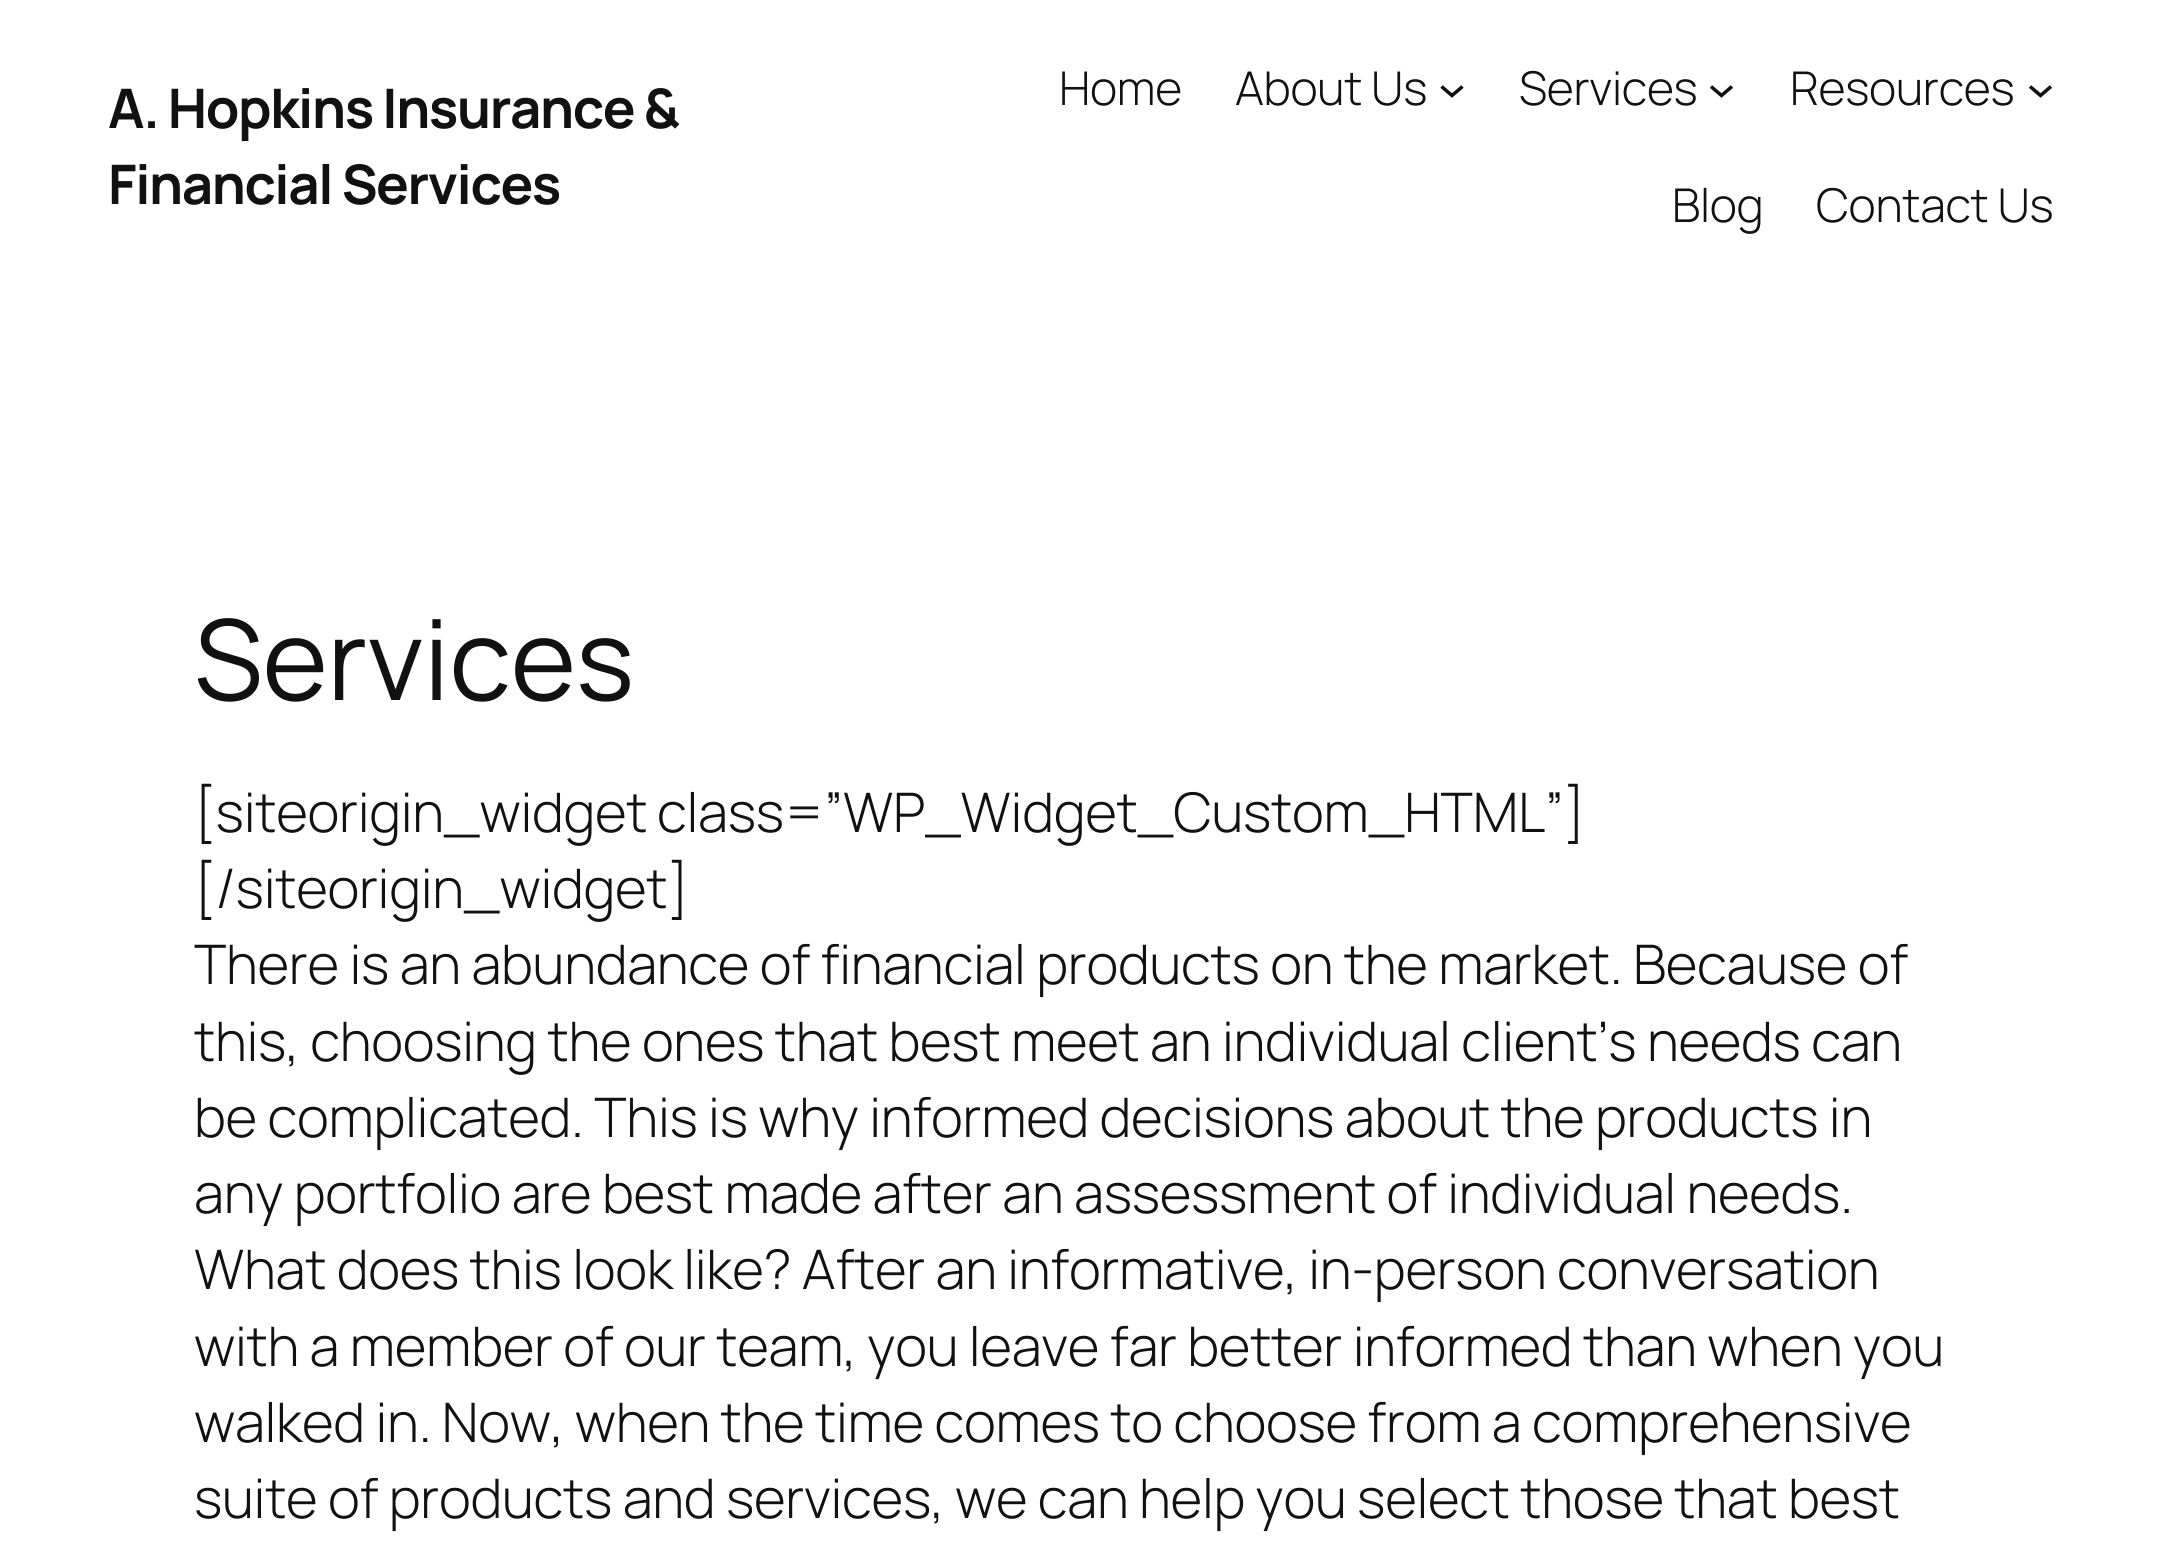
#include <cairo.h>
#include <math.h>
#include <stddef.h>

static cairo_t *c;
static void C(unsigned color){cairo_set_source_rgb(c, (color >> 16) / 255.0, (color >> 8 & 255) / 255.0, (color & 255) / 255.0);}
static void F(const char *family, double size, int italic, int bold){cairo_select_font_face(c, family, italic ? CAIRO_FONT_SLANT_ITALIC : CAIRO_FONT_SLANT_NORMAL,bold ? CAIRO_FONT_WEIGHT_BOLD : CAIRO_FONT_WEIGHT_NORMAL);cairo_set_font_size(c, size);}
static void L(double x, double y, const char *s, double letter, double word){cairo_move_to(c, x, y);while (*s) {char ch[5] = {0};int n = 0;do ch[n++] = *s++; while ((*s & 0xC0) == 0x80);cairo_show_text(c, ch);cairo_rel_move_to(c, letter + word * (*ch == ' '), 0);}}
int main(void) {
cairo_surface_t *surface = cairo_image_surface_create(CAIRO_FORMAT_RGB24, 2159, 1541);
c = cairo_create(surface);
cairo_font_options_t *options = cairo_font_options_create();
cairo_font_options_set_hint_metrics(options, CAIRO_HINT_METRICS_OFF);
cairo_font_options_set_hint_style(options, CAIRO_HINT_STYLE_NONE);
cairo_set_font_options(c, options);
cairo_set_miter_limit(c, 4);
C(0xffffff);
cairo_paint(c);
F("Manrope",54.5,0,1);
C(0x111111);
L(108,128,"A. Hopkins Insurance &",-1.4,0);
L(108,204,"Financial Services",-1.4,0);
F("Manrope Light",46.5,0,0);
L(1059,105,"Home",-.28,0);
L(1235,105,"About Us",-.28,0);
cairo_new_path(c);
cairo_move_to(c,1441.5,86.5);
cairo_line_to(c,1452,95.5);
cairo_line_to(c,1462.5,86.5);
cairo_set_line_width(c,3.5);
cairo_stroke(c);
L(1519,105,"Services",-.28,0);
cairo_new_path(c);
cairo_move_to(c,1711,86.5);
cairo_line_to(c,1721.5,95.5);
cairo_line_to(c,1732,86.5);
cairo_stroke(c);
L(1790,105,"Resources",-.28,0);
cairo_new_path(c);
cairo_move_to(c,2030,86.5);
cairo_line_to(c,2040.5,95.5);
cairo_line_to(c,2051,86.5);
cairo_stroke(c);
L(1672,222,"Blog",-.28,0);
L(1816,222,"Contact Us",-.28,0);
F("Manrope",111.5,0,0);
L(194,700,"Services",-.28,0);
F("Manrope Light",54.5,0,0);
L(194,832,"[siteorigin_widget class=”WP_Widget_Custom_HTML”]",-.28,-1);
L(194,908,"[/siteorigin_widget]",-.28,0);
L(194,984,"There is an abundance of financial products on the market. Because of",-.28,0);
L(194,1061,"this, choosing the ones that best meet an individual client’s needs can",-.28,0);
L(194,1137,"be complicated. This is why informed decisions about the products in",-.28,0);
L(194,1213,"any portfolio are best made after an assessment of individual needs.",-.28,0);
L(194,1289,"What does this look like? After an informative, in-person conversation",-.28,-.1);
L(194,1366,"with a member of our team, you leave far better informed than when you",-.28,0);
L(194,1442,"walked in. Now, when the time comes to choose from a comprehensive",-.28,0);
L(194,1518,"suite of products and services, we can help you select those that best",-.28,0);
cairo_surface_write_to_png(surface, "o.png");
cairo_font_options_destroy(options);
cairo_destroy(c);
cairo_surface_destroy(surface);
return 0;
}
